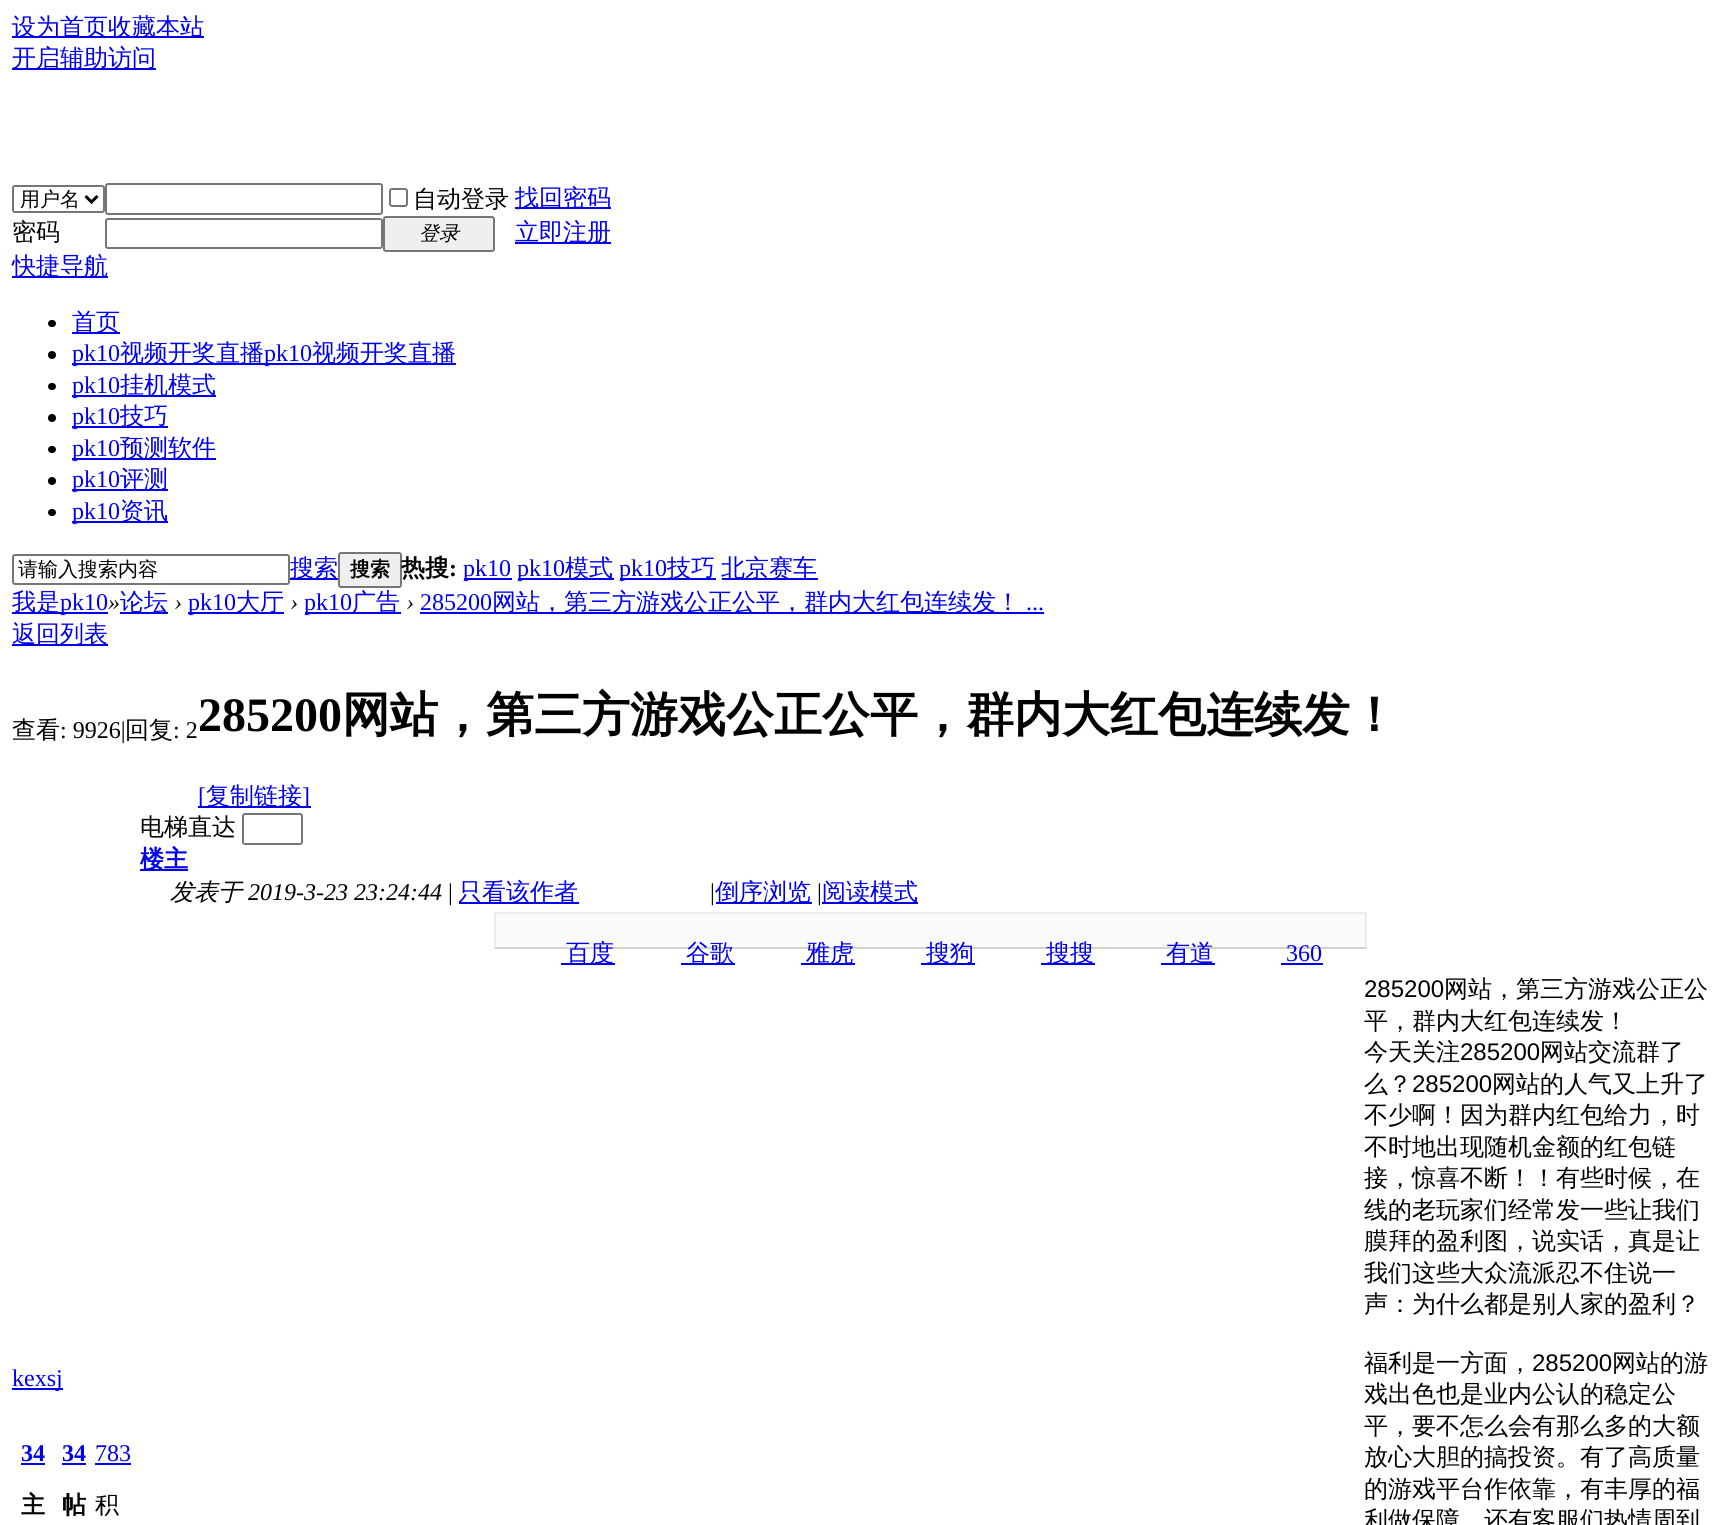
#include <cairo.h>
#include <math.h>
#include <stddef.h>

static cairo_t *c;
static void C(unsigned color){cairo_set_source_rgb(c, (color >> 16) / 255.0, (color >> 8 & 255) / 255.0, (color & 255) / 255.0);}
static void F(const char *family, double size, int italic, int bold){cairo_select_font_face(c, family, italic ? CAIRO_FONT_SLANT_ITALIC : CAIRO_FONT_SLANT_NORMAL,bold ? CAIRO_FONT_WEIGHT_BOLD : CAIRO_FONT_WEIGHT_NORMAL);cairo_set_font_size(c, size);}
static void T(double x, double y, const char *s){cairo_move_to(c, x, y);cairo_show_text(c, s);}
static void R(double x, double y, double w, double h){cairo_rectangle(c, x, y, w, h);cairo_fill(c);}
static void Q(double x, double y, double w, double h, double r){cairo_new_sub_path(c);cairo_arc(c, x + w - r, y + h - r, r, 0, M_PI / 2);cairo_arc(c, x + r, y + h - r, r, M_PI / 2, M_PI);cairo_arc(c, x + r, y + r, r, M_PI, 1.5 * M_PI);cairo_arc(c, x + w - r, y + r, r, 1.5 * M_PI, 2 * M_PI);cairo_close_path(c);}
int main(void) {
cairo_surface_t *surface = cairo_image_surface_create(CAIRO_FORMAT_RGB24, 1731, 1525);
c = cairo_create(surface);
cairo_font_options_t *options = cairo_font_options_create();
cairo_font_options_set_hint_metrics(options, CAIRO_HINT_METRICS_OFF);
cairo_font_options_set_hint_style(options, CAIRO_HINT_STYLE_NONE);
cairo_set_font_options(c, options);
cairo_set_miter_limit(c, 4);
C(0xffffff);
cairo_paint(c);
C(0x0000ee);
R(12,36,192,2);
F("WenQuanYi Zen Hei Medium",24,0,0);
T(12,35,"设为首页收藏本站");
R(12,68,144,2);
T(12,66,"开启辅助访问");
Q(13,186,91,26,2);
C(0x767676);
cairo_stroke(c);
cairo_new_path(c);
cairo_move_to(c,85.5,196);
cairo_line_to(c,91.5,202);
cairo_line_to(c,97.5,196);
C(0x000000);
cairo_set_line_width(c,3);
cairo_stroke(c);
F("WenQuanYi Zen Hei Medium",20,0,0);
T(20,206,"用户名");
Q(106,184,276,30,2);
C(0x767676);
cairo_set_line_width(c,2);
cairo_stroke(c);
Q(390,189,17,17,2);
cairo_stroke(c);
F("WenQuanYi Zen Hei Medium",24,0,0);
C(0x000000);
T(413,207,"自动登录");
C(0x0000ee);
R(515,207,96,2);
T(515,206,"找回密码");
C(0x000000);
T(12,240,"密码");
Q(106,219,276,29,2);
C(0x767676);
cairo_stroke(c);
C(0xefefef);
Q(384,217,110,34,2);
cairo_fill_preserve(c);
C(0x767676);
cairo_stroke(c);
F("WenQuanYi Zen Hei Medium",20,1,0);
C(0x000000);
T(419,240,"登录");
C(0x0000ee);
R(515,242,96,2);
F("WenQuanYi Zen Hei Medium",24,0,0);
T(515,240,"立即注册");
R(12,276,96,2);
T(12,274,"快捷导航");
C(0x000000);
Q(48,320,8,7,3.5);
cairo_fill(c);
C(0x0000ee);
R(72,332,48,2);
T(72,330,"首页");
C(0x000000);
cairo_new_path(c);
cairo_arc(c,52,355,4,0,2 * M_PI);
cairo_fill(c);
C(0x0000ee);
R(72,363,384,2);
F("Liberation Serif",24,0,0);
T(72,361,"pk10");
F("WenQuanYi Zen Hei Medium",24,0,0);
T(120,361,"视频开奖直播");
F("Liberation Serif",24,0,0);
T(264,361,"pk10");
F("WenQuanYi Zen Hei Medium",24,0,0);
T(312,361,"视频开奖直播");
C(0x000000);
Q(48,383,8,7,3.5);
cairo_fill(c);
C(0x0000ee);
R(72,395,144,2);
F("Liberation Serif",24,0,0);
T(72,393,"pk10");
F("WenQuanYi Zen Hei Medium",24,0,0);
T(120,393,"挂机模式");
C(0x000000);
cairo_new_path(c);
cairo_arc(c,52,418,4,0,2 * M_PI);
cairo_fill(c);
C(0x0000ee);
R(72,426,96,2);
F("Liberation Serif",24,0,0);
T(72,424,"pk10");
F("WenQuanYi Zen Hei Medium",24,0,0);
T(120,424,"技巧");
C(0x000000);
Q(48,446,8,7,3.5);
cairo_fill(c);
C(0x0000ee);
R(72,458,144,2);
F("Liberation Serif",24,0,0);
T(72,456,"pk10");
F("WenQuanYi Zen Hei Medium",24,0,0);
T(120,456,"预测软件");
C(0x000000);
cairo_new_path(c);
cairo_arc(c,52,481,4,0,2 * M_PI);
cairo_fill(c);
C(0x0000ee);
R(72,489,96,2);
F("Liberation Serif",24,0,0);
T(72,487,"pk10");
F("WenQuanYi Zen Hei Medium",24,0,0);
T(120,487,"评测");
C(0x000000);
Q(48,509,8,7,3.5);
cairo_fill(c);
C(0x0000ee);
R(72,521,96,2);
F("Liberation Serif",24,0,0);
T(72,519,"pk10");
F("WenQuanYi Zen Hei Medium",24,0,0);
T(120,519,"资讯");
Q(13,555,276,29,2);
C(0x767676);
cairo_stroke(c);
F("WenQuanYi Zen Hei Medium",20,0,0);
C(0x000000);
T(18,576,"请输入搜索内容");
C(0x0000ee);
R(290,578,48,2);
F("WenQuanYi Zen Hei Medium",24,0,0);
T(290,576,"搜索");
C(0xefefef);
Q(339,553,62,34,2);
cairo_fill_preserve(c);
C(0x767676);
cairo_stroke(c);
F("WenQuanYi Zen Hei",20,0,1);
C(0x000000);
T(350,576,"搜索");
F("WenQuanYi Zen Hei",24,0,1);
T(401,576,"热搜");
F("Liberation Serif",24,0,1);
T(449,576,":");
C(0x0000ee);
R(464,578,48,2);
F("Liberation Serif",24,0,0);
T(463,576,"pk10");
R(518,578,96,2);
T(517,576,"pk10");
F("WenQuanYi Zen Hei Medium",24,0,0);
T(565,576,"模式");
R(620,578,96,2);
F("Liberation Serif",24,0,0);
T(619,576,"pk10");
F("WenQuanYi Zen Hei Medium",24,0,0);
T(667,576,"技巧");
R(722,578,96,2);
T(721,576,"北京赛车");
R(12,612,96,2);
T(12,610,"我是");
F("Liberation Serif",24,0,0);
T(60,610,"pk10");
F("Liberation Serif",24,1,0);
C(0x000000);
T(108,610,"»");
C(0x0000ee);
R(120,612,48,2);
F("WenQuanYi Zen Hei Medium",24,0,0);
T(120,610,"论坛");
F("Liberation Serif",24,1,0);
C(0x000000);
T(174,610,"›");
C(0x0000ee);
R(188,612,96,2);
F("Liberation Serif",24,0,0);
T(188,610,"pk10");
F("WenQuanYi Zen Hei Medium",24,0,0);
T(236,610,"大厅");
F("Liberation Serif",24,1,0);
C(0x000000);
T(290,610,"›");
C(0x0000ee);
R(305,612,96,2);
F("Liberation Serif",24,0,0);
T(304,610,"pk10");
F("WenQuanYi Zen Hei Medium",24,0,0);
T(352,610,"广告");
F("Liberation Serif",24,1,0);
C(0x000000);
T(406,610,"›");
F("Liberation Serif",24,0,0);
C(0x0000ee);
T(420,610,"285200");
R(420,612,624,2);
F("WenQuanYi Zen Hei Medium",24,0,0);
T(492,610,"网站，第三方游戏公正公平，群内大红包连续发！");
F("Liberation Serif",24,0,0);
T(1026,610,"...");
R(12,644,96,2);
F("WenQuanYi Zen Hei Medium",24,0,0);
T(12,642,"返回列表");
C(0x000000);
T(12,738,"查看");
F("Liberation Serif",24,0,0);
T(60,738,": 9926|");
F("WenQuanYi Zen Hei Medium",24,0,0);
T(125,738,"回复");
F("Liberation Serif",24,0,0);
T(173,738,": 2");
F("Liberation Serif",48,0,1);
T(198,731,"285200");
F("WenQuanYi Zen Hei",48,0,1);
T(342,731,"网站，第三方游戏公正公平，群内大红包连续发！");
C(0x0000ee);
R(198,806,113,2);
F("Liberation Serif",24,0,0);
T(198,804,"[");
F("WenQuanYi Zen Hei Medium",24,0,0);
T(206,804,"复制链接");
F("Liberation Serif",24,0,0);
T(302,804,"]");
R(12,1388,51,2);
T(12,1386,"kexsj");
F("Liberation Serif",24,0,1);
T(21,1461,"34");
R(21,1463,24,2);
F("WenQuanYi Zen Hei",24,0,1);
C(0x000000);
T(21,1513,"主");
F("Liberation Serif",24,0,1);
C(0x0000ee);
T(62,1461,"34");
R(62,1463,24,2);
F("WenQuanYi Zen Hei",24,0,1);
C(0x000000);
T(62,1513,"帖");
F("Liberation Serif",24,0,0);
C(0x0000ee);
T(95,1461,"783");
R(95,1463,36,2);
F("WenQuanYi Zen Hei Medium",24,0,0);
C(0x000000);
T(95,1513,"积");
T(140,835,"电梯直达");
Q(243,814,59,30,2);
C(0x767676);
cairo_stroke(c);
C(0x0000ee);
R(140,869,48,2);
F("WenQuanYi Zen Hei",24,0,1);
T(140,867,"楼主");
F("WenQuanYi Zen Hei Medium",24,1,0);
C(0x000000);
T(170,900,"发表于");
F("Liberation Serif",24,1,0);
T(248,900,"2019-3-23 23:24:44");
F("Liberation Serif",24,0,0);
T(448,900,"|");
C(0x0000ee);
R(459,902,120,2);
F("WenQuanYi Zen Hei Medium",24,0,0);
T(458,900,"只看该作者");
F("Liberation Serif",24,0,0);
C(0x000000);
T(710,900,"|");
C(0x0000ee);
R(716,902,96,2);
F("WenQuanYi Zen Hei Medium",24,0,0);
T(715,900,"倒序浏览");
F("Liberation Serif",24,0,0);
C(0x000000);
T(817,900,"|");
C(0x0000ee);
R(822,902,96,2);
F("WenQuanYi Zen Hei Medium",24,0,0);
T(822,900,"阅读模式");
C(0xfafafa);
R(496,914,869,33);
C(0xe9edf0);
R(494,912,873,2);
R(1365,912,2,36);
C(0xd3d3d3);
R(494,947,873,2);
C(0xe9edf0);
R(494,912,2,36);
C(0x0000ee);
R(561,963,54,2);
T(566,961,"百度");
R(681,963,54,2);
T(686,961,"谷歌");
R(801,963,54,2);
T(806,961,"雅虎");
R(921,963,54,2);
T(926,961,"搜狗");
R(1041,963,54,2);
T(1046,961,"搜搜");
R(1161,963,54,2);
T(1166,961,"有道");
F("Liberation Serif",24,0,0);
T(1286,961,"360");
R(1281,963,42,2);
F("Liberation Sans",24,0,0);
C(0x000000);
T(1364,997,"285200");
F("WenQuanYi Zen Hei Medium",24,0,0);
T(1444,997,"网站，第三方游戏公正公");
T(1364,1029,"平，群内大红包连续发！");
T(1364,1060,"今天关注");
F("Liberation Sans",24,0,0);
T(1460,1060,"285200");
F("WenQuanYi Zen Hei Medium",24,0,0);
T(1540,1060,"网站交流群了");
T(1364,1092,"么？");
F("Liberation Sans",24,0,0);
T(1412,1092,"285200");
F("WenQuanYi Zen Hei Medium",24,0,0);
T(1492,1092,"网站的人气又上升了");
T(1364,1123,"不少啊！因为群内红包给力，时");
T(1364,1155,"不时地出现随机金额的红包链");
T(1364,1186,"接，惊喜不断！！有些时候，在");
T(1364,1218,"线的老玩家们经常发一些让我们");
T(1364,1249,"膜拜的盈利图，说实话，真是让");
T(1364,1281,"我们这些大众流派忍不住说一");
T(1364,1312,"声：为什么都是别人家的盈利？");
T(1364,1371,"福利是一方面，");
F("Liberation Sans",24,0,0);
T(1532,1371,"285200");
F("WenQuanYi Zen Hei Medium",24,0,0);
T(1612,1371,"网站的游");
T(1364,1402,"戏出色也是业内公认的稳定公");
T(1364,1434,"平，要不怎么会有那么多的大额");
T(1364,1465,"放心大胆的搞投资。有了高质量");
T(1364,1497,"的游戏平台作依靠，有丰厚的福");
T(1364,1528,"利做保障，还有客服们热情周到");
cairo_surface_write_to_png(surface, "o.png");
cairo_font_options_destroy(options);
cairo_destroy(c);
cairo_surface_destroy(surface);
return 0;
}
